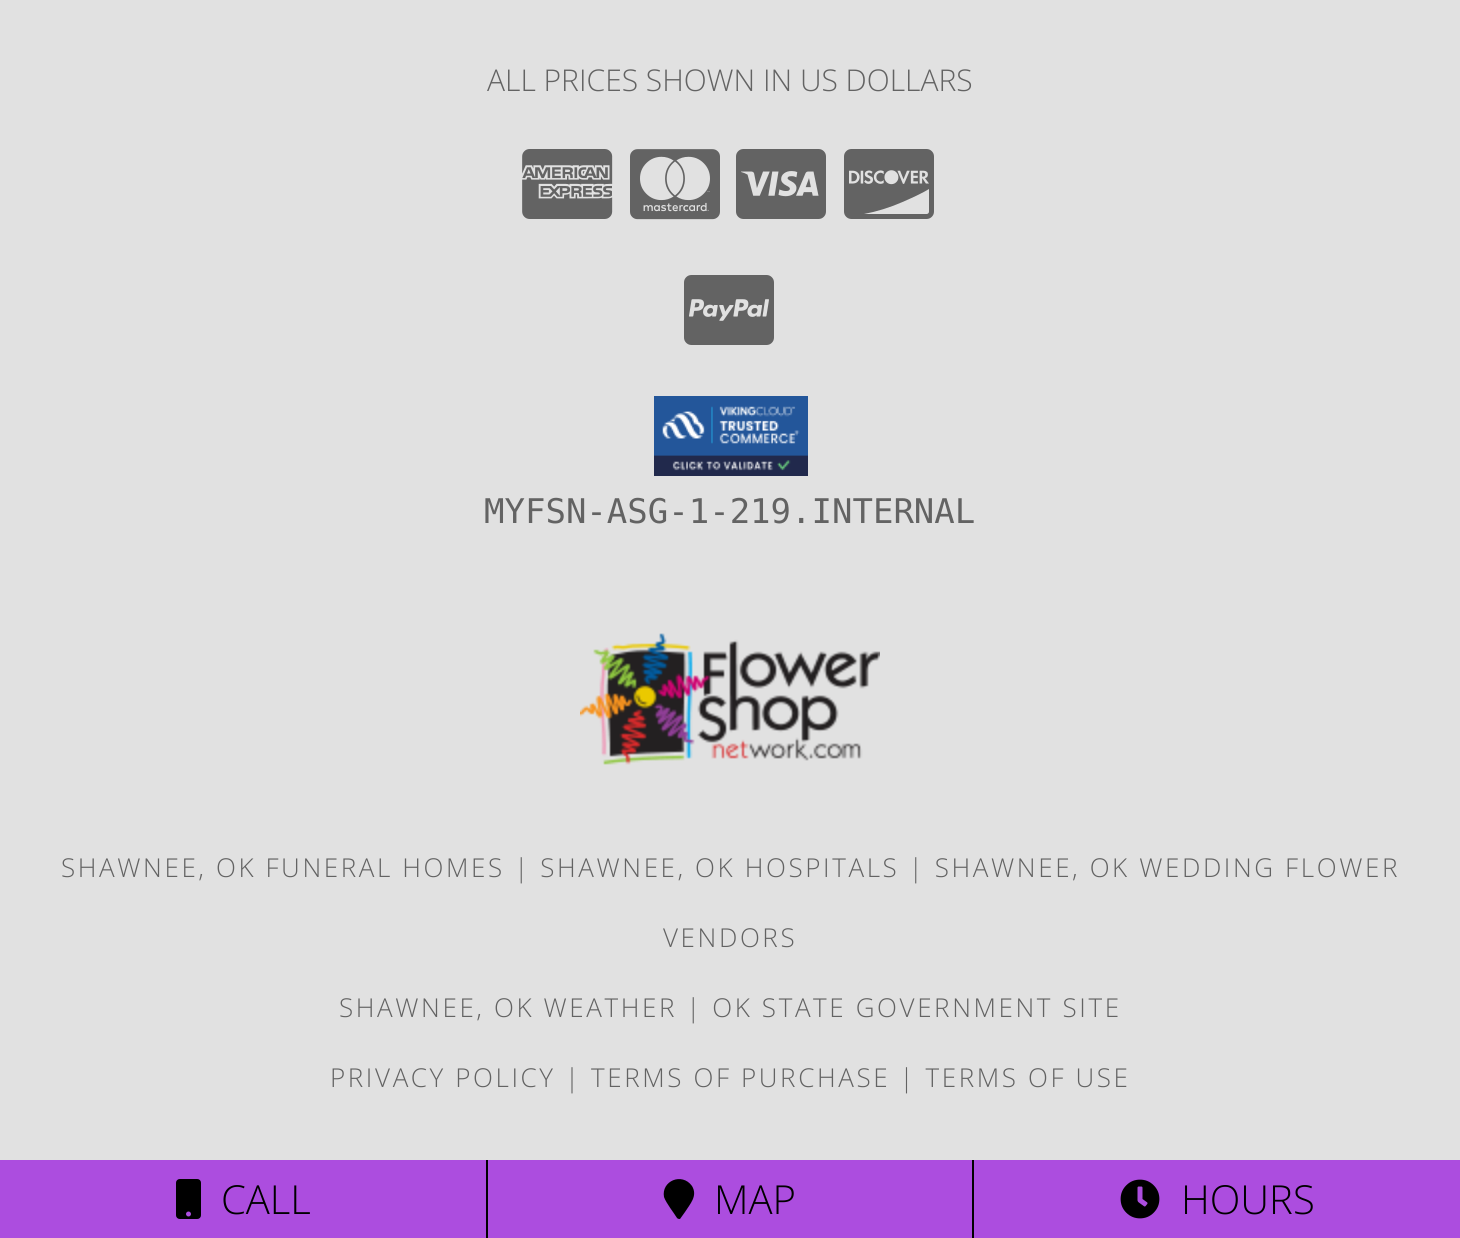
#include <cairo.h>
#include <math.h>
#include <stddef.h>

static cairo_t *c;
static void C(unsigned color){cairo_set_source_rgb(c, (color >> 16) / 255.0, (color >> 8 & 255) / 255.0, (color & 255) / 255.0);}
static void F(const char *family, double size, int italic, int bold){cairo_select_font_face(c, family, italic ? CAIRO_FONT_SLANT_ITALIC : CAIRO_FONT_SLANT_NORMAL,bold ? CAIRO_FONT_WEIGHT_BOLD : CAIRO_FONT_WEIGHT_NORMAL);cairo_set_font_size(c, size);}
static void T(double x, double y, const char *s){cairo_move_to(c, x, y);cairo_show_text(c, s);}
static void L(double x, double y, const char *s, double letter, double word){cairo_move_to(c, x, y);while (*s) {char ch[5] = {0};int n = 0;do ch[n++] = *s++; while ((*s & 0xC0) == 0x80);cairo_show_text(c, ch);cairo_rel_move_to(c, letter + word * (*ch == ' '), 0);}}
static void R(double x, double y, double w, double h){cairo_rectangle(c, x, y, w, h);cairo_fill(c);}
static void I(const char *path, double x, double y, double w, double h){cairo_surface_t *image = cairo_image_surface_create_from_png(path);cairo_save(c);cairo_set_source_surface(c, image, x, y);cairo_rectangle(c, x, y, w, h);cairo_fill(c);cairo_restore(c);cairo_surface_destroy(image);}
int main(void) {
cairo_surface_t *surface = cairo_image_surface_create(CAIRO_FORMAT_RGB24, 1460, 1238);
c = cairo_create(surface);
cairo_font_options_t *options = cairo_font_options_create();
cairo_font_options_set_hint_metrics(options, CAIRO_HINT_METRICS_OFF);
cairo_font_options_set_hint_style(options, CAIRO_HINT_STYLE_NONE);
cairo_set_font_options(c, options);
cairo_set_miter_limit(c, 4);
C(0xe1e1e1);
cairo_paint(c);
F("Open Sans Light",30,0,0);
C(0x636363);
T(487,91,"ALL PRICES SHOWN IN US DOLLARS");
I("1.png",522,149,91,70);
I("2.png",630,149,90,71);
I("3.png",736,149,90,70);
I("4.png",844,149,90,70);
I("5.png",684,275,90,70);
I("6.png",654,396,154,80);
F("DejaVu Sans Mono",34,0,0);
T(484,523,"MYFSN-ASG-1-219.INTERNAL");
I("7.png",580,633,300,132);
F("Open Sans Light",26,0,0);
L(61,877,"SHAWNEE, OK FUNERAL HOMES | SHAWNEE, OK HOSPITALS | SHAWNEE, OK WEDDING FLOWER",2.6,0);
L(663,947,"VENDORS",2.6,0);
L(339,1017,"SHAWNEE, OK WEATHER | OK STATE GOVERNMENT SITE",2.6,0);
L(330,1087,"PRIVACY POLICY | TERMS OF PURCHASE | TERMS OF USE",2.6,0);
C(0xac4ddf);
R(0,1160,486,78);
I("8.png",176,1179,25,40);
F("Open Sans Light",40,0,0);
C(0x000000);
T(221,1214,"CALL");
C(0xac4ddf);
R(488,1160,484,78);
C(0x000000);
R(486,1160,2,78);
cairo_new_path(c);
cairo_move_to(c,677,1218);
cairo_curve_to(c,674,1213,666,1203,664,1197);
cairo_curve_to(c,661,1181,682,1172,692,1186);
cairo_curve_to(c,698,1196,690,1204,685,1212);
cairo_line_to(c,680,1219);
cairo_curve_to(c,679,1219,678,1219,677,1218);
cairo_close_path(c);
cairo_fill(c);
T(714,1214,"MAP");
C(0xac4ddf);
R(974,1160,486,78);
C(0x000000);
R(972,1160,2,78);
I("9.png",1120,1179,40,40);
T(1181,1214,"HOURS");
cairo_surface_write_to_png(surface, "o.png");
cairo_font_options_destroy(options);
cairo_destroy(c);
cairo_surface_destroy(surface);
return 0;
}
